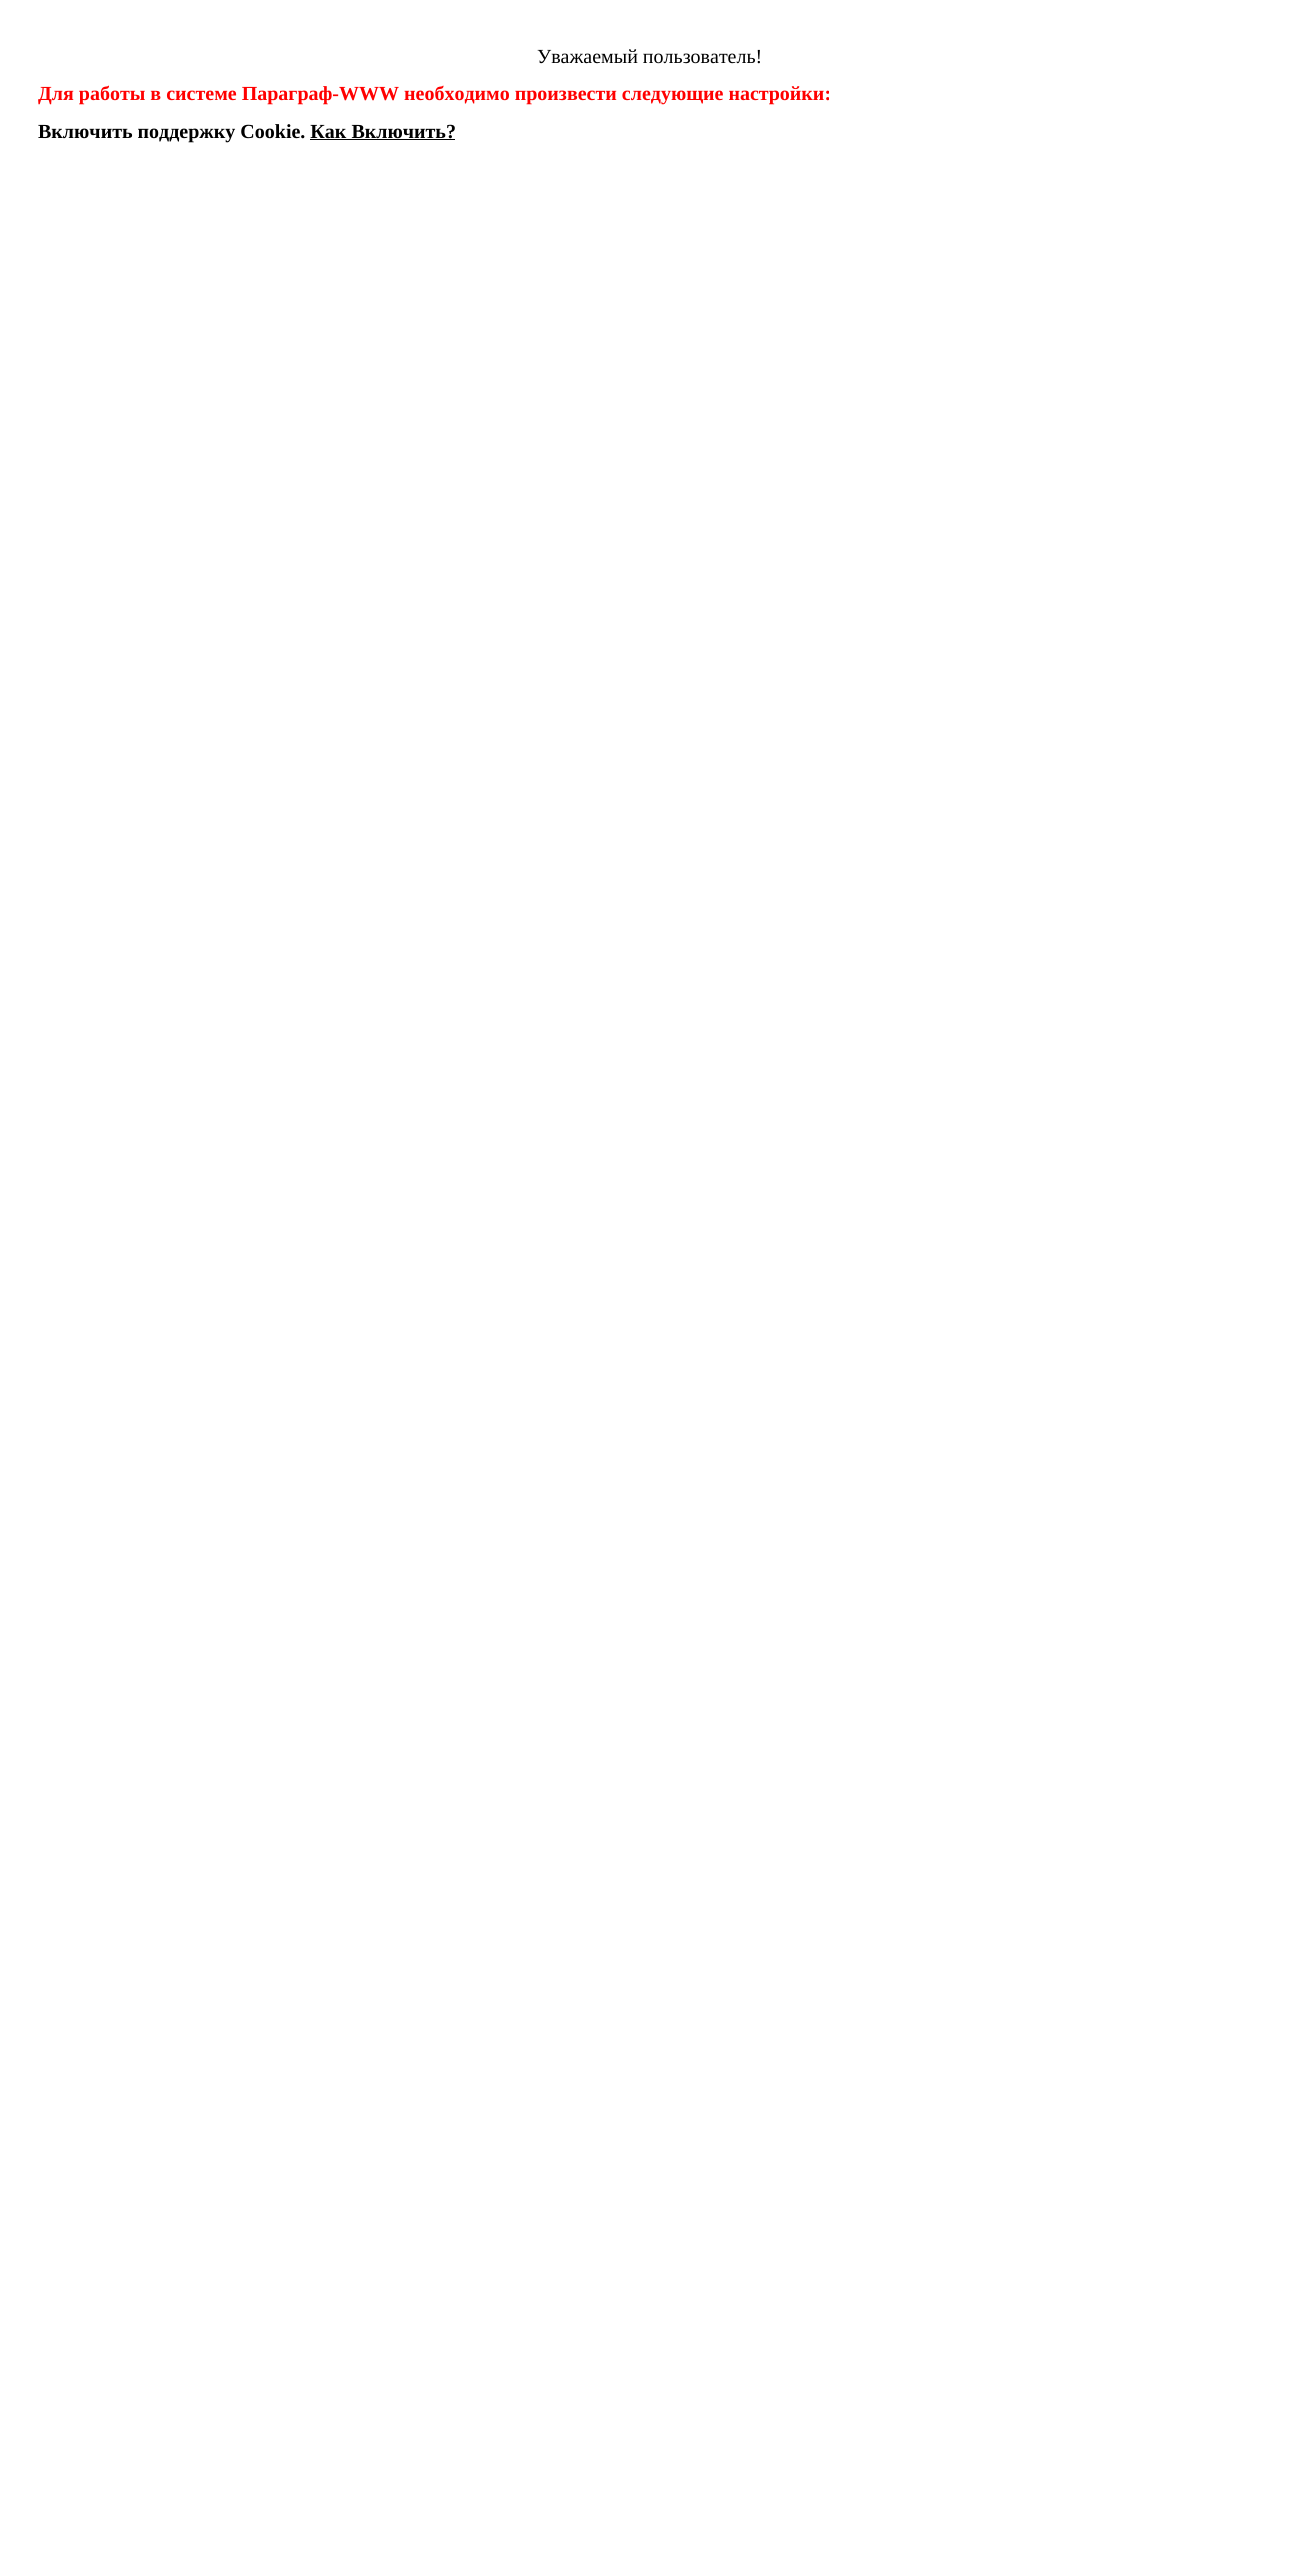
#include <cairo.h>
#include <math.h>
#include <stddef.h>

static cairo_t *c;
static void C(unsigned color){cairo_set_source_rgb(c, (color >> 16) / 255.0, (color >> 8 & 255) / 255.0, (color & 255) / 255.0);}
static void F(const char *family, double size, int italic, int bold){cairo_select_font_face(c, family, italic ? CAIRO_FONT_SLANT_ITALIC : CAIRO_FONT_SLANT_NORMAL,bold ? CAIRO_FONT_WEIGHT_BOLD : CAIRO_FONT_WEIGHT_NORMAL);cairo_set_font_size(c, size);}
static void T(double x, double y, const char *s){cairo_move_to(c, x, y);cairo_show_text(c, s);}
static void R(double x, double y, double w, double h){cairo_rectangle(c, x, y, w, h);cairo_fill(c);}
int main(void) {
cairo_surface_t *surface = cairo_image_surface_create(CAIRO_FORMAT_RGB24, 1299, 2558);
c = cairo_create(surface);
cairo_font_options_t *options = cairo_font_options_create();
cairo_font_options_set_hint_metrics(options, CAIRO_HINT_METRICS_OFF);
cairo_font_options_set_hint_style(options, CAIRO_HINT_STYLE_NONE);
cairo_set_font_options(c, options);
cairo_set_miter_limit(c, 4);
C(0xffffff);
cairo_paint(c);
F("Liberation Serif",20,0,0);
C(0x000000);
T(537,63,"Уважаемый пользователь!");
F("Liberation Serif",20,0,1);
C(0xff0000);
T(38,100,"Для работы в системе Параграф-WWW необходимо произвести следующие настройки:");
C(0x000000);
T(38,138,"Включить поддержку Cookie. Как Включить?");
R(310,139,145,1);
cairo_surface_write_to_png(surface, "o.png");
cairo_font_options_destroy(options);
cairo_destroy(c);
cairo_surface_destroy(surface);
return 0;
}
